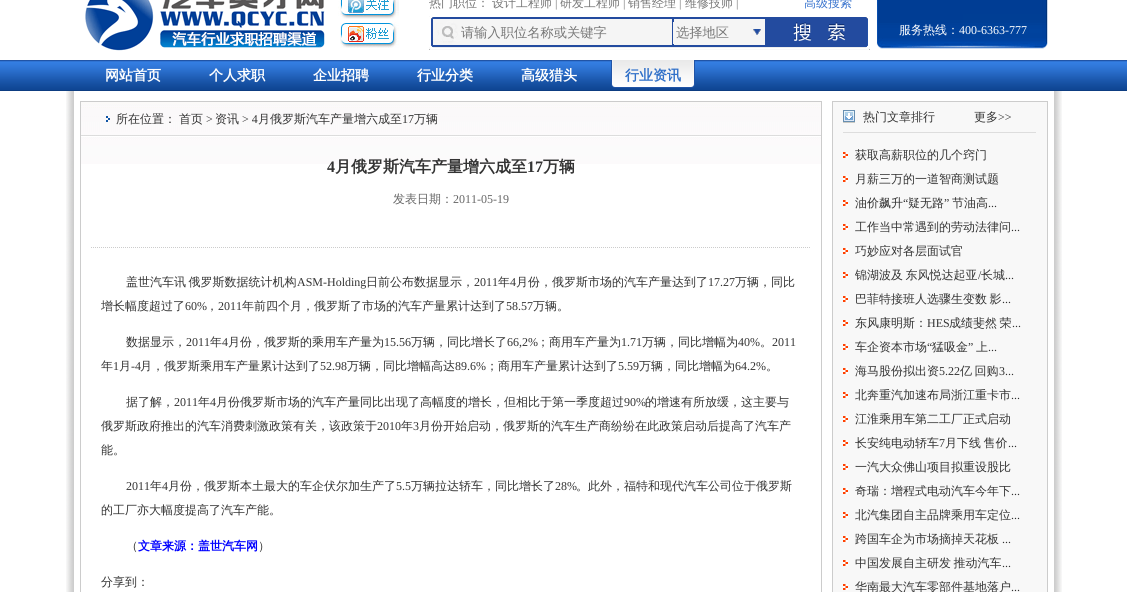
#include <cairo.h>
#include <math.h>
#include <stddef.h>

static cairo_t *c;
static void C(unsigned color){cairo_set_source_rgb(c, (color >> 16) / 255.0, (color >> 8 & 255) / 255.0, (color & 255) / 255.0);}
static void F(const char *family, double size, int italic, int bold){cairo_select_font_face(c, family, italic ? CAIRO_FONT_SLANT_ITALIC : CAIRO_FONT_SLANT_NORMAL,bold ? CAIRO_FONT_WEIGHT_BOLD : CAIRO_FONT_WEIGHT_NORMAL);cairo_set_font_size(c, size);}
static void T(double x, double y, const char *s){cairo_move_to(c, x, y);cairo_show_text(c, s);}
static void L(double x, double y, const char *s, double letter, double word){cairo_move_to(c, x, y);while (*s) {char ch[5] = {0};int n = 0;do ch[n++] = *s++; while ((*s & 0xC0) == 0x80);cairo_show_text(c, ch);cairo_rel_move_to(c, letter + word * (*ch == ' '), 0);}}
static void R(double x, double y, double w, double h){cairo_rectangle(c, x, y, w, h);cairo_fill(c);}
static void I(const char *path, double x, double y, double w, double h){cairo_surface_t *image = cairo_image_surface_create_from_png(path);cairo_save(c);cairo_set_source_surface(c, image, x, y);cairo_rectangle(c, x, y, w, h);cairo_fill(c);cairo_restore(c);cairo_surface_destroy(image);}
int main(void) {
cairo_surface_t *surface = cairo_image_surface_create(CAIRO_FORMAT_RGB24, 1127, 592);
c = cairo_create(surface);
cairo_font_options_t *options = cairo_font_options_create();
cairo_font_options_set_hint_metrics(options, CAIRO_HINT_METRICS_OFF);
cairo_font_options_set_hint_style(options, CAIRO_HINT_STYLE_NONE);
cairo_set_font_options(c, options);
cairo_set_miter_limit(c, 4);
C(0xffffff);
cairo_paint(c);
I("1.png",85,0,240,51);
I("2.png",338,0,61,19);
I("3.png",340,22,59,26);
F("WenQuanYi Zen Hei Medium",12,0,0);
C(0x777777);
T(429,7,"热门职位：");
T(492,7,"设计工程师");
F("Liberation Serif",12,0,0);
T(555,7,"|");
F("WenQuanYi Zen Hei Medium",12,0,0);
T(560,7,"研发工程师");
F("Liberation Serif",12,0,0);
T(623,7,"|");
F("WenQuanYi Zen Hei Medium",12,0,0);
T(628,7,"销售经理");
F("Liberation Serif",12,0,0);
T(679,7,"|");
F("WenQuanYi Zen Hei Medium",12,0,0);
T(685,7,"维修技师");
F("Liberation Serif",12,0,0);
T(736,7,"|");
F("WenQuanYi Zen Hei Medium",12,0,0);
C(0x3974ce);
T(804,7,"高级搜索");
I("4.png",429,16,441,34);
F("WenQuanYi Zen Hei Medium",13.25,0,0);
C(0x777777);
T(461,37,"请输入职位名称或关键字");
C(0xf5f5f5);
R(673,22,1,22);
C(0x777777);
T(676,37,"选择地区");
I("5.png",877,0,171,49);
F("WenQuanYi Zen Hei Medium",12,0,0);
C(0xffffff);
T(899,34,"服务热线：");
F("Liberation Serif",12,0,0);
T(959,34,"400-6363-777");
I("6.png",0,60,1127,31);
F("WenQuanYi Zen Hei",14,0,1);
T(105,80,"网站首页");
T(209,80,"个人求职");
T(313,80,"企业招聘");
T(417,80,"行业分类");
T(521,80,"高级猎头");
I("7.png",611,60,84,28);
C(0x3171c9);
T(625,80,"行业资讯");
I("8.png",66,91,996,501);
I("9.png",81,102,740,62);
cairo_rectangle(c,80.5,101.5,741,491);
C(0xcccccc);
cairo_set_line_width(c,1);
cairo_stroke(c);
I("10.png",106,116,4,6);
F("WenQuanYi Zen Hei Medium",12,0,0);
C(0x333333);
T(116,123,"所在位置：");
T(179,123,"首页");
F("Liberation Serif",12,0,0);
T(206,123,">");
F("WenQuanYi Zen Hei Medium",12,0,0);
T(215,123,"资讯");
F("Liberation Serif",12,0,0);
T(242,123,"> 4");
F("WenQuanYi Zen Hei Medium",12,0,0);
T(258,123,"月俄罗斯汽车产量增六成至");
F("Liberation Serif",12,0,0);
T(402,123,"17");
F("WenQuanYi Zen Hei Medium",12,0,0);
T(414,123,"万辆");
F("Liberation Serif",16,0,1);
T(327,172,"4");
F("WenQuanYi Zen Hei",16,0,1);
T(335,172,"月俄罗斯汽车产量增六成至");
F("Liberation Serif",16,0,1);
T(527,172,"17");
F("WenQuanYi Zen Hei",16,0,1);
T(543,172,"万辆");
F("WenQuanYi Zen Hei Medium",12,0,0);
C(0x666666);
T(393,203,"发表日期：");
F("Liberation Serif",12,0,0);
T(453,203,"2011-05-19");
cairo_new_path(c);
cairo_move_to(c,91,247.5);
cairo_line_to(c,811,247.5);
C(0xcccccc);
cairo_set_dash(c,(double[]){1,1},2,0);
cairo_stroke(c);
F("WenQuanYi Zen Hei Medium",12,0,0);
C(0x333333);
L(126,286,"盖世汽车讯 俄罗斯数据统计机构",0,-1);
F("Liberation Serif",12,0,0);
T(297,286,"ASM-Holding");
F("WenQuanYi Zen Hei Medium",12,0,0);
T(366,286,"日前公布数据显示，");
F("Liberation Serif",12,0,0);
T(474,286,"2011");
F("WenQuanYi Zen Hei Medium",12,0,0);
T(498,286,"年");
F("Liberation Serif",12,0,0);
T(510,286,"4");
F("WenQuanYi Zen Hei Medium",12,0,0);
T(516,286,"月份，俄罗斯市场的汽车产量达到了");
F("Liberation Serif",12,0,0);
T(708,286,"17.27");
F("WenQuanYi Zen Hei Medium",12,0,0);
T(735,286,"万辆，同比");
T(101,310,"增长幅度超过了");
F("Liberation Serif",12,0,0);
T(185,310,"60%");
F("WenQuanYi Zen Hei Medium",12,0,0);
T(206,310,"，");
F("Liberation Serif",12,0,0);
T(218,310,"2011");
F("WenQuanYi Zen Hei Medium",12,0,0);
T(242,310,"年前四个月，俄罗斯了市场的汽车产量累计达到了");
F("Liberation Serif",12,0,0);
T(506,310,"58.57");
F("WenQuanYi Zen Hei Medium",12,0,0);
T(533,310,"万辆。");
T(126,346,"数据显示，");
F("Liberation Serif",12,0,0);
T(186,346,"2011");
F("WenQuanYi Zen Hei Medium",12,0,0);
T(210,346,"年");
F("Liberation Serif",12,0,0);
T(222,346,"4");
F("WenQuanYi Zen Hei Medium",12,0,0);
T(228,346,"月份，俄罗斯的乘用车产量为");
F("Liberation Serif",12,0,0);
T(384,346,"15.56");
F("WenQuanYi Zen Hei Medium",12,0,0);
T(411,346,"万辆，同比增长了");
F("Liberation Serif",12,0,0);
T(507,346,"66,2%");
F("WenQuanYi Zen Hei Medium",12,0,0);
T(537,346,"；商用车产量为");
F("Liberation Serif",12,0,0);
T(621,346,"1.71");
F("WenQuanYi Zen Hei Medium",12,0,0);
T(642,346,"万辆，同比增幅为");
F("Liberation Serif",12,0,0);
T(738,346,"40%");
F("WenQuanYi Zen Hei Medium",12,0,0);
T(760,346,"。");
F("Liberation Serif",12,0,0);
T(772,346,"2011");
F("WenQuanYi Zen Hei Medium",12,0,0);
T(101,370,"年");
F("Liberation Serif",12,0,0);
T(113,370,"1");
F("WenQuanYi Zen Hei Medium",12,0,0);
T(119,370,"月");
F("Liberation Serif",12,0,0);
T(131,370,"-4");
F("WenQuanYi Zen Hei Medium",12,0,0);
T(140,370,"月，俄罗斯乘用车产量累计达到了");
F("Liberation Serif",12,0,0);
T(320,370,"52.98");
F("WenQuanYi Zen Hei Medium",12,0,0);
T(347,370,"万辆，同比增幅高达");
F("Liberation Serif",12,0,0);
T(455,370,"89.6%");
F("WenQuanYi Zen Hei Medium",12,0,0);
T(486,370,"；商用车产量累计达到了");
F("Liberation Serif",12,0,0);
T(618,370,"5.59");
F("WenQuanYi Zen Hei Medium",12,0,0);
T(639,370,"万辆，同比增幅为");
F("Liberation Serif",12,0,0);
T(735,370,"64.2%");
F("WenQuanYi Zen Hei Medium",12,0,0);
T(766,370,"。");
T(126,406,"据了解，");
F("Liberation Serif",12,0,0);
T(174,406,"2011");
F("WenQuanYi Zen Hei Medium",12,0,0);
T(198,406,"年");
F("Liberation Serif",12,0,0);
T(210,406,"4");
F("WenQuanYi Zen Hei Medium",12,0,0);
T(216,406,"月份俄罗斯市场的汽车产量同比出现了高幅度的增长，但相比于第一季度超过");
F("Liberation Serif",12,0,0);
T(624,406,"90%");
F("WenQuanYi Zen Hei Medium",12,0,0);
T(645,406,"的增速有所放缓，这主要与");
T(101,430,"俄罗斯政府推出的汽车消费刺激政策有关，该政策于");
F("Liberation Serif",12,0,0);
T(377,430,"2010");
F("WenQuanYi Zen Hei Medium",12,0,0);
T(401,430,"年");
F("Liberation Serif",12,0,0);
T(413,430,"3");
F("WenQuanYi Zen Hei Medium",12,0,0);
T(419,430,"月份开始启动，俄罗斯的汽车生产商纷纷在此政策启动后提高了汽车产");
T(101,454,"能。");
F("Liberation Serif",12,0,0);
T(126,490,"2011");
F("WenQuanYi Zen Hei Medium",12,0,0);
T(150,490,"年");
F("Liberation Serif",12,0,0);
T(162,490,"4");
F("WenQuanYi Zen Hei Medium",12,0,0);
T(168,490,"月份，俄罗斯本土最大的车企伏尔加生产了");
F("Liberation Serif",12,0,0);
T(396,490,"5.5");
F("WenQuanYi Zen Hei Medium",12,0,0);
T(411,490,"万辆拉达轿车，同比增长了");
F("Liberation Serif",12,0,0);
T(555,490,"28%");
F("WenQuanYi Zen Hei Medium",12,0,0);
T(576,490,"。此外，福特和现代汽车公司位于俄罗斯");
T(101,514,"的工厂亦大幅度提高了汽车产能。");
T(126,550,"（");
F("WenQuanYi Zen Hei",12,0,1);
C(0x0000ff);
T(138,550,"文章来源：盖世汽车网");
F("WenQuanYi Zen Hei Medium",12,0,0);
C(0x333333);
T(258,550,"）");
T(101,586,"分享到：");
C(0xf8f8f8);
cairo_rectangle(c,832.5,101.5,215,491);
cairo_fill_preserve(c);
C(0xcccccc);
cairo_set_dash(c,NULL,0,0);
cairo_stroke(c);
I("11.png",843,110,12,13);
C(0xdddddd);
R(843,132,193,1);
C(0x333333);
T(863,121,"热门文章排行");
T(974,121,"更多");
F("Liberation Serif",12,0,0);
T(998,121,">>");
I("12.png",843,152,5,6);
F("WenQuanYi Zen Hei Medium",12,0,0);
T(855,159,"获取高薪职位的几个窍门");
I("12.png",843,176,5,6);
T(855,183,"月薪三万的一道智商测试题");
I("12.png",843,200,5,6);
T(855,207,"油价飙升");
F("Liberation Serif",12,0,0);
T(903,207,"“");
F("WenQuanYi Zen Hei Medium",12,0,0);
T(908,207,"疑无路");
F("Liberation Serif",12,0,0);
T(944,207,"”");
F("WenQuanYi Zen Hei Medium",12,0,0);
T(952,207,"节油高");
F("Liberation Serif",12,0,0);
T(988,207,"...");
I("12.png",843,224,5,6);
F("WenQuanYi Zen Hei Medium",12,0,0);
T(855,231,"工作当中常遇到的劳动法律问");
F("Liberation Serif",12,0,0);
T(1011,231,"...");
I("12.png",843,248,5,6);
F("WenQuanYi Zen Hei Medium",12,0,0);
T(855,255,"巧妙应对各层面试官");
I("12.png",843,272,5,6);
L(855,279,"锦湖波及 东风悦达起亚",0,-1);
F("Liberation Serif",12,0,0);
T(978,279,"/");
F("WenQuanYi Zen Hei Medium",12,0,0);
T(981,279,"长城");
F("Liberation Serif",12,0,0);
T(1005,279,"...");
I("12.png",843,296,5,6);
F("WenQuanYi Zen Hei Medium",12,0,0);
L(855,303,"巴菲特接班人选骤生变数 影",0,-1);
F("Liberation Serif",12,0,0);
T(1002,303,"...");
I("12.png",843,320,5,6);
F("WenQuanYi Zen Hei Medium",12,0,0);
T(855,327,"东风康明斯：");
F("Liberation Serif",12,0,0);
T(927,327,"HES");
F("WenQuanYi Zen Hei Medium",12,0,0);
L(949,327,"成绩斐然 荣",0,-1);
F("Liberation Serif",12,0,0);
T(1012,327,"...");
I("12.png",843,344,5,6);
F("WenQuanYi Zen Hei Medium",12,0,0);
T(855,351,"车企资本市场");
F("Liberation Serif",12,0,0);
T(927,351,"“");
F("WenQuanYi Zen Hei Medium",12,0,0);
T(932,351,"猛吸金");
F("Liberation Serif",12,0,0);
T(968,351,"”");
F("WenQuanYi Zen Hei Medium",12,0,0);
T(976,351,"上");
F("Liberation Serif",12,0,0);
T(988,351,"...");
I("12.png",843,368,5,6);
F("WenQuanYi Zen Hei Medium",12,0,0);
T(855,375,"海马股份拟出资");
F("Liberation Serif",12,0,0);
T(939,375,"5.22");
F("WenQuanYi Zen Hei Medium",12,0,0);
L(960,375,"亿 回购",0,-1);
F("Liberation Serif",12,0,0);
T(999,375,"3...");
I("12.png",843,392,5,6);
F("WenQuanYi Zen Hei Medium",12,0,0);
T(855,399,"北奔重汽加速布局浙江重卡市");
F("Liberation Serif",12,0,0);
T(1011,399,"...");
I("12.png",843,416,5,6);
F("WenQuanYi Zen Hei Medium",12,0,0);
T(855,423,"江淮乘用车第二工厂正式启动");
I("12.png",843,440,5,6);
T(855,447,"长安纯电动轿车");
F("Liberation Serif",12,0,0);
T(939,447,"7");
F("WenQuanYi Zen Hei Medium",12,0,0);
L(945,447,"月下线 售价",0,-1);
F("Liberation Serif",12,0,0);
T(1008,447,"...");
I("12.png",843,464,5,6);
F("WenQuanYi Zen Hei Medium",12,0,0);
T(855,471,"一汽大众佛山项目拟重设股比");
I("12.png",843,488,5,6);
T(855,495,"奇瑞：增程式电动汽车今年下");
F("Liberation Serif",12,0,0);
T(1011,495,"...");
I("12.png",843,512,5,6);
F("WenQuanYi Zen Hei Medium",12,0,0);
T(855,519,"北汽集团自主品牌乘用车定位");
F("Liberation Serif",12,0,0);
T(1011,519,"...");
I("12.png",843,536,5,6);
F("WenQuanYi Zen Hei Medium",12,0,0);
T(855,543,"跨国车企为市场摘掉天花板");
F("Liberation Serif",12,0,0);
T(1002,543,"...");
I("12.png",843,560,5,6);
F("WenQuanYi Zen Hei Medium",12,0,0);
L(855,567,"中国发展自主研发 推动汽车",0,-1);
F("Liberation Serif",12,0,0);
T(1002,567,"...");
I("12.png",843,584,5,6);
F("WenQuanYi Zen Hei Medium",12,0,0);
T(855,591,"华南最大汽车零部件基地落户");
F("Liberation Serif",12,0,0);
T(1011,591,"...");
cairo_surface_write_to_png(surface, "o.png");
cairo_font_options_destroy(options);
cairo_destroy(c);
cairo_surface_destroy(surface);
return 0;
}
